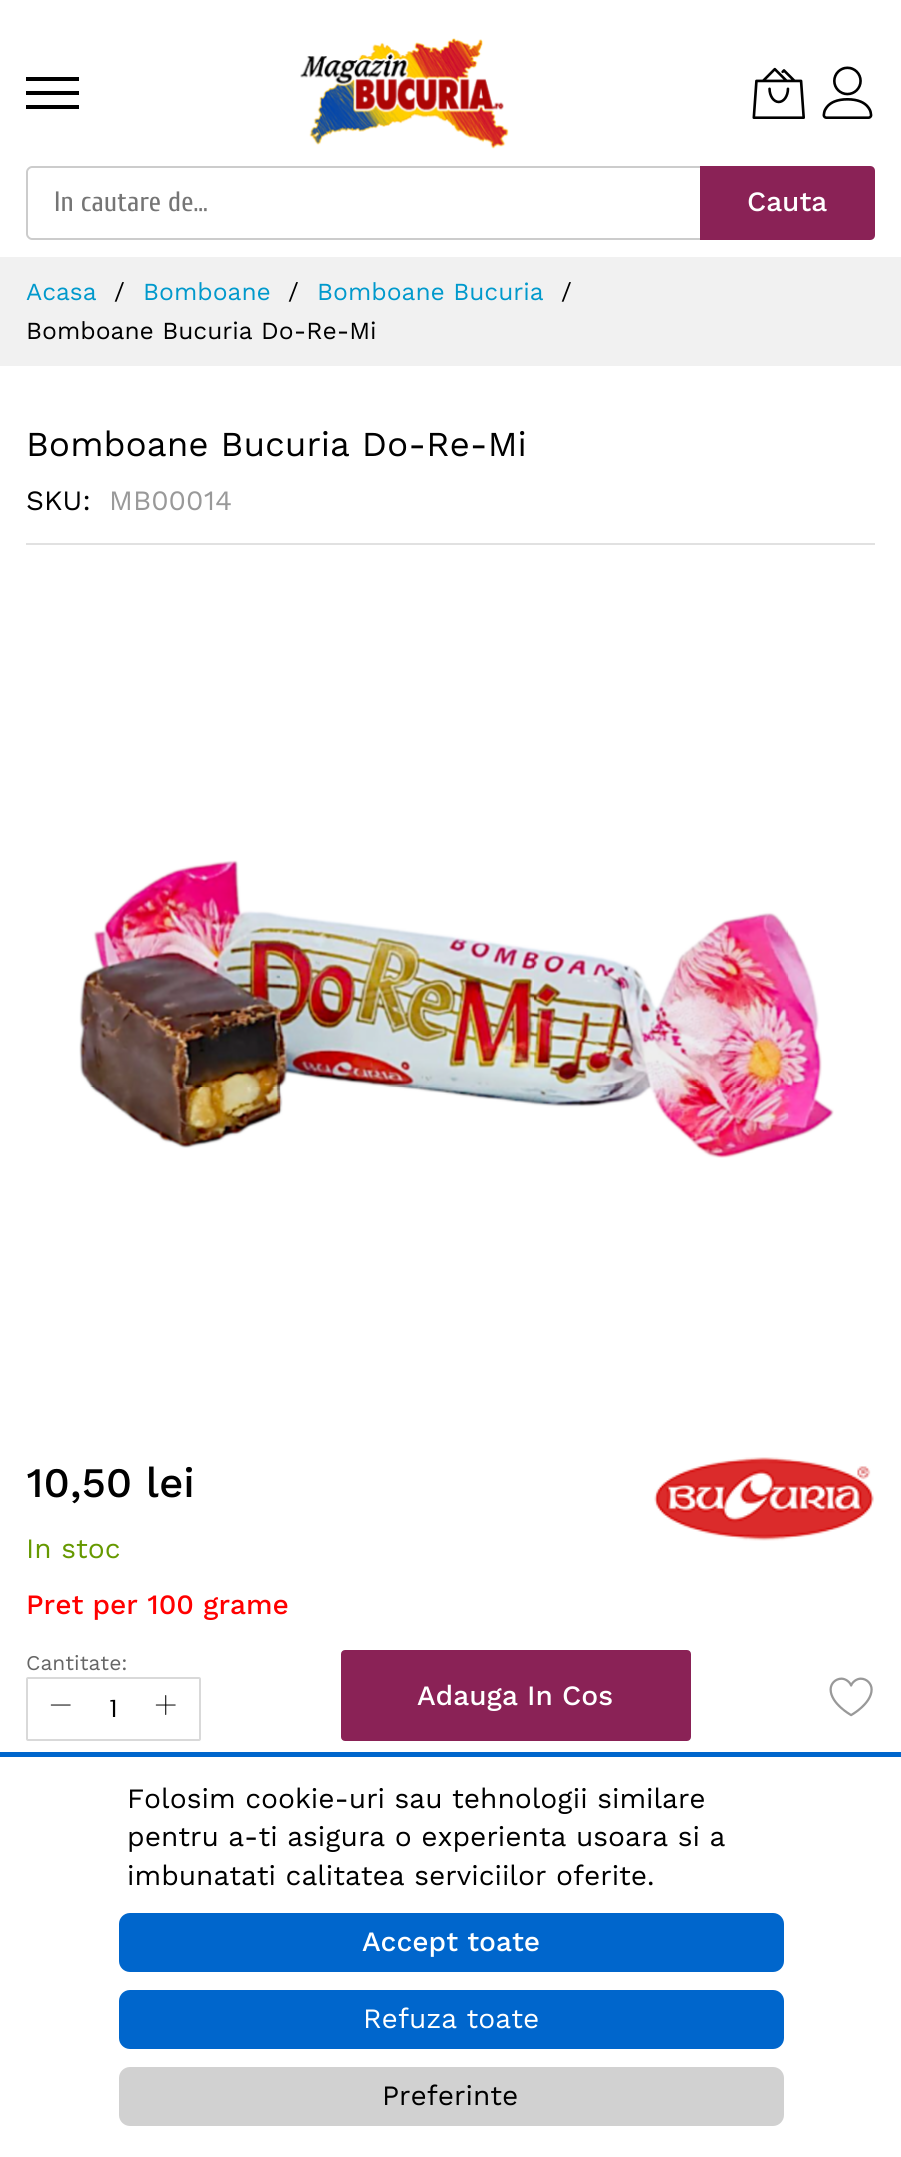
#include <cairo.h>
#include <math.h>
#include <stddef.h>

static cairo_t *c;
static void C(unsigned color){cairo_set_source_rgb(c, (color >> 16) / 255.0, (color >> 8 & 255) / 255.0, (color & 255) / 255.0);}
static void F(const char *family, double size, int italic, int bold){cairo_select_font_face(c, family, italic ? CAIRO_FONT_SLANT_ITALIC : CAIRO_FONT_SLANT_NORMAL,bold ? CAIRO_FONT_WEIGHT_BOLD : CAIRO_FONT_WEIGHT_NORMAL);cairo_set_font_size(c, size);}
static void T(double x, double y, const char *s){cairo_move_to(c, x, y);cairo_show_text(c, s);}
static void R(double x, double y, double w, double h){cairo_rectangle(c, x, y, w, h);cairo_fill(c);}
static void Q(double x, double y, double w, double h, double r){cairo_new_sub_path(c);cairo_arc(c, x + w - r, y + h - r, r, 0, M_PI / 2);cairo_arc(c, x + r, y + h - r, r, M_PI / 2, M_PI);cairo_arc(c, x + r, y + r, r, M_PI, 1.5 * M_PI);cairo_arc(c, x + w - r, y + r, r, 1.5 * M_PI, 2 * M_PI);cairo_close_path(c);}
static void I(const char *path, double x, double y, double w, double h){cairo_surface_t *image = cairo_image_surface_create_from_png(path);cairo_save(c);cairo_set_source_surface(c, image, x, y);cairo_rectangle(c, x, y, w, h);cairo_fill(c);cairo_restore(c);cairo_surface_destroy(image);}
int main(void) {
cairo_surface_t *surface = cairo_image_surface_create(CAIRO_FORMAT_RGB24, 901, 2157);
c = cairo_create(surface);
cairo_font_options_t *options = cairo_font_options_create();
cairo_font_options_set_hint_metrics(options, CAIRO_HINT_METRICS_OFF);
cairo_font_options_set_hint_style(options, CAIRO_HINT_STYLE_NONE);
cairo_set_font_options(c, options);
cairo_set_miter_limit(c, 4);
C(0xffffff);
cairo_paint(c);
C(0x000000);
R(26,91,53,4);
R(26,77,53,4);
R(26,105,53,4);
I("1.png",300,38,209,111);
I("2.png",752,67,53,52);
I("3.png",822,66,51,53);
C(0xcccccc);
cairo_set_fill_rule(c,CAIRO_FILL_RULE_EVEN_ODD);
cairo_new_path(c);
cairo_move_to(c,32,166);
cairo_line_to(c,700,166);
cairo_line_to(c,700,240);
cairo_line_to(c,32,240);
cairo_curve_to(c,29,240,26,237,26,234);
cairo_line_to(c,26,172);
cairo_curve_to(c,26,169,29,166,32,166);
cairo_close_path(c);
cairo_move_to(c,32,168);
cairo_line_to(c,700,168);
cairo_line_to(c,700,238);
cairo_line_to(c,32,238);
cairo_curve_to(c,30,238,28,236,28,234);
cairo_line_to(c,28,172);
cairo_curve_to(c,28,170,30,168,32,168);
cairo_close_path(c);
cairo_fill(c);
F("Cuprum",28,0,0);
C(0x757575);
T(54,211,"In cautare de...");
C(0x8a2256);
cairo_new_path(c);
cairo_move_to(c,700,166);
cairo_line_to(c,870,166);
cairo_curve_to(c,873,166,875,168,875,171);
cairo_line_to(c,875,235);
cairo_curve_to(c,875,238,873,240,870,240);
cairo_line_to(c,700,240);
cairo_close_path(c);
cairo_fill(c);
F("Work Sans Medium",28,0,0);
C(0xffffff);
T(747,211,"Cauta");
C(0xf1f1f1);
R(0,257,901,109);
F("Work Sans",24.5,0,0);
C(0x0099cc);
T(26,300,"Acasa");
C(0x000000);
T(114,300,"/");
C(0x0099cc);
T(143,300,"Bomboane");
C(0x000000);
T(288,300,"/");
C(0x0099cc);
T(317,300,"Bomboane Bucuria");
C(0x000000);
T(561,300,"/");
T(26,339,"Bomboane Bucuria Do-Re-Mi");
C(0xe1e1e1);
R(26,543,849,2);
F("Work Sans",35,0,0);
C(0x000000);
T(26,456,"Bomboane Bucuria Do-Re-Mi");
F("Work Sans",28,0,0);
T(26,510,"SKU:");
C(0x999999);
T(109,510,"MB00014");
I("4.png",79,860,755,298);
F("Work Sans Medium",42,0,0);
C(0x000000);
T(26,1497,"10,50 lei");
I("5.png",654,1457,220,84);
F("Work Sans",28,0,0);
C(0x669900);
T(26,1558,"In stoc");
F("Work Sans Medium",28,0,0);
C(0xff0000);
T(26,1614,"Pret per 100 grame");
F("Work Sans",21,0,0);
C(0x666666);
T(26,1670,"Cantitate:");
Q(27,1678,173,62,1);
C(0xd9d9d9);
cairo_stroke(c);
I("6.png",50,1704,21,2);
F("Cuprum",24.5,0,0);
C(0x000000);
T(110,1717,"1");
I("7.png",155,1695,21,20);
C(0x8a2256);
Q(342,1651,348,89,3);
cairo_fill_preserve(c);
cairo_stroke(c);
F("Work Sans Medium",28,0,0);
C(0xffffff);
T(417,1705,"Adauga In Cos");
I("8.png",829,1677,44,40);
C(0x0066cc);
R(0,1752,901,5);
F("Work Sans",28,0,0);
C(0x000000);
T(127,1808,"Folosim cookie-uri sau tehnologii similare");
T(127,1846,"pentru a-ti asigura o experienta usoara si a");
T(127,1885,"imbunatati calitatea serviciilor oferite.");
C(0x0066cc);
Q(120,1914,663,57,10);
cairo_fill_preserve(c);
cairo_stroke(c);
F("Work Sans Medium",28,0,0);
C(0xffffff);
T(362,1951,"Accept toate");
C(0x0066cc);
Q(120,1991,663,57,10);
cairo_fill_preserve(c);
cairo_stroke(c);
F("Work Sans",28,0,0);
C(0xffffff);
T(363,2028,"Refuza toate");
C(0xd1d1d1);
Q(120,2068,663,57,10);
cairo_fill_preserve(c);
cairo_stroke(c);
C(0x000000);
T(382,2105,"Preferinte");
cairo_surface_write_to_png(surface, "o.png");
cairo_font_options_destroy(options);
cairo_destroy(c);
cairo_surface_destroy(surface);
return 0;
}
